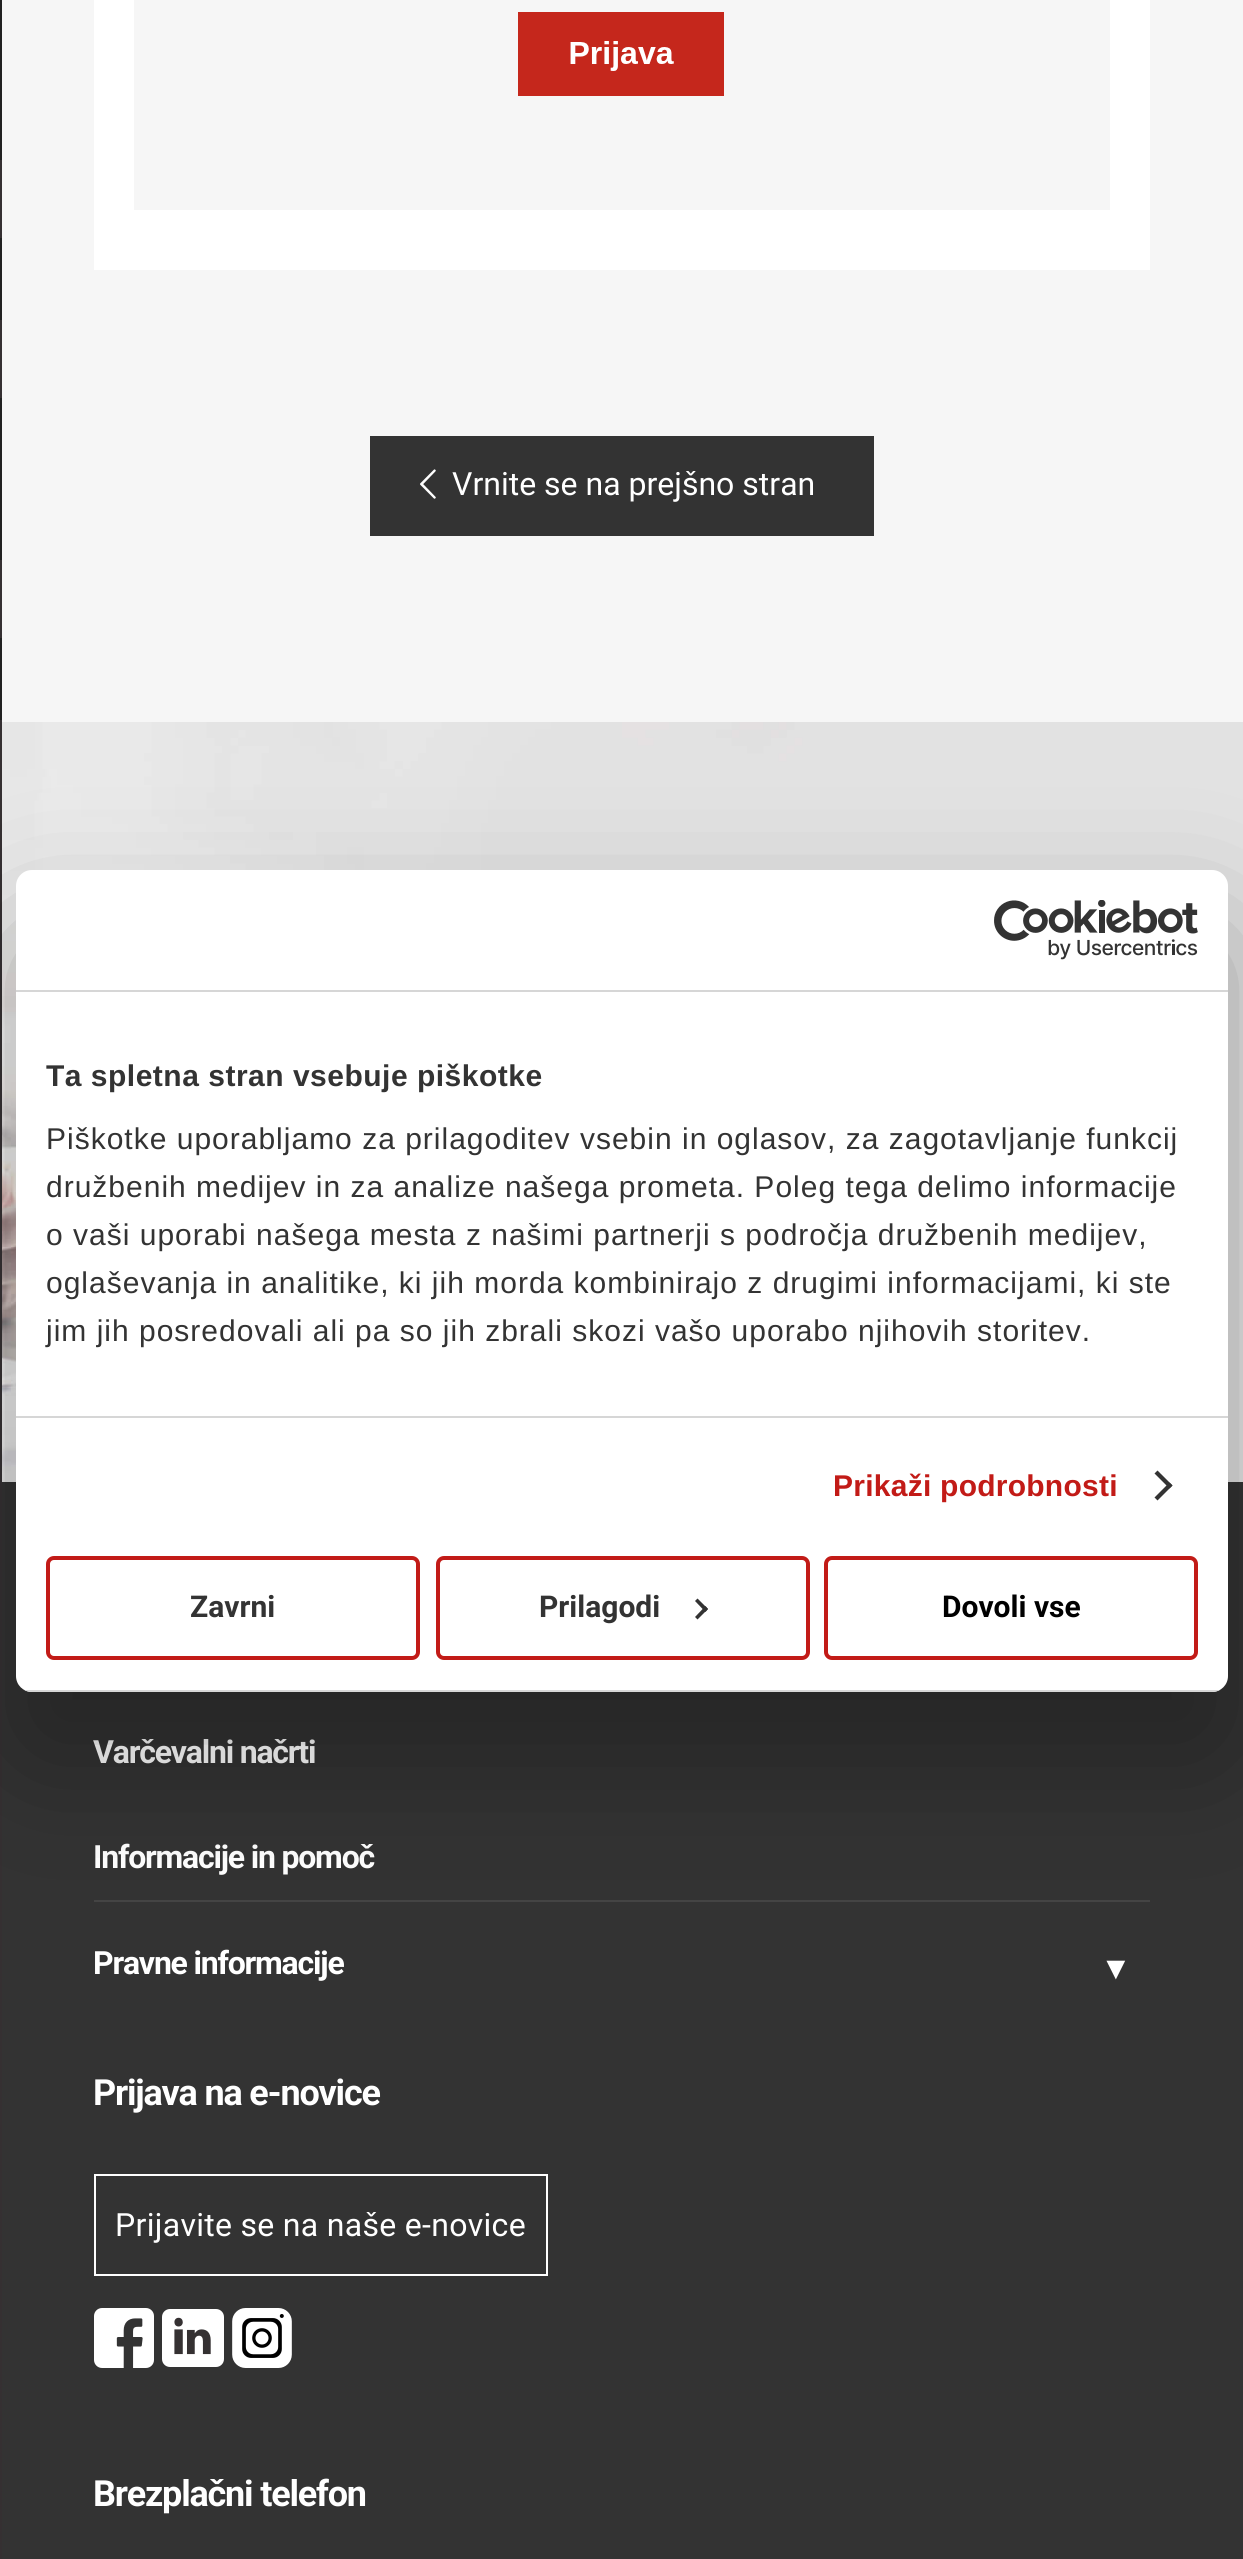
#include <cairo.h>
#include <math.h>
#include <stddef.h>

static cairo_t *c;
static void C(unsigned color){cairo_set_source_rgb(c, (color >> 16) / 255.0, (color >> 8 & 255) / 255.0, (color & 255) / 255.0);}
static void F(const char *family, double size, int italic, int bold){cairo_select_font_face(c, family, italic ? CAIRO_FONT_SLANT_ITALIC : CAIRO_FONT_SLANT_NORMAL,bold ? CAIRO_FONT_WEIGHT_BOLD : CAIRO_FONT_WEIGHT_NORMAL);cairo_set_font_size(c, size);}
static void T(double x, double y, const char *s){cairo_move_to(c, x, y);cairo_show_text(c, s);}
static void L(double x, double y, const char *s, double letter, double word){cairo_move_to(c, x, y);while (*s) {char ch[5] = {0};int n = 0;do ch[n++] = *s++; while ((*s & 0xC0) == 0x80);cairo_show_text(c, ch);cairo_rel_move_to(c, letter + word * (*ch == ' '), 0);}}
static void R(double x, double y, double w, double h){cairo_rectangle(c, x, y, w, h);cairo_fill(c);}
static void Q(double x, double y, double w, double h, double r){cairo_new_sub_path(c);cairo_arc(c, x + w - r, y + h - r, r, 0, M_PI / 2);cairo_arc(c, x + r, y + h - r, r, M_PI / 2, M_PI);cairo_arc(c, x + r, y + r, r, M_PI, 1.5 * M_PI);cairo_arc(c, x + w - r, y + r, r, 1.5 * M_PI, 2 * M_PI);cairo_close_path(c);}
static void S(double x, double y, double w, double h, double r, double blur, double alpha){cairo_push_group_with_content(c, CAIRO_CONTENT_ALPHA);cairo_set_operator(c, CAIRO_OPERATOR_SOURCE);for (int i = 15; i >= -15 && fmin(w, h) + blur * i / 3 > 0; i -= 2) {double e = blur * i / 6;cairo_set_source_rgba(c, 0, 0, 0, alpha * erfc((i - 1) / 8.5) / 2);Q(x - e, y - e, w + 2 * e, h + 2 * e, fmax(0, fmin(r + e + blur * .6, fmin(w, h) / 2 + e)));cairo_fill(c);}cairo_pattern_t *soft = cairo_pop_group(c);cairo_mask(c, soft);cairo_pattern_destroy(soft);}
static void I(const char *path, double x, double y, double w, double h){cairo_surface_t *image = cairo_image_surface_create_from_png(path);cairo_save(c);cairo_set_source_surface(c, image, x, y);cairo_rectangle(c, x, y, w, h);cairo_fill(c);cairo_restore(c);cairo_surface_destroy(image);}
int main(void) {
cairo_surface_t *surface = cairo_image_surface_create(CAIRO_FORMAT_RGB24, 1243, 2559);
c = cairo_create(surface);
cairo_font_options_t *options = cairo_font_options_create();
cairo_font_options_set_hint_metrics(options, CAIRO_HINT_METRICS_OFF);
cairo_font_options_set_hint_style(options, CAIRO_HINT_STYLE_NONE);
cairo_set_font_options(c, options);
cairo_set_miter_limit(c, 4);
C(0xffffff);
cairo_paint(c);
C(0x353032);
R(0,160,2,2399);
C(0x212121);
R(0,0,2,80);
R(0,80,2,80);
R(0,238,2,2);
R(0,240,2,80);
R(0,398,2,2);
R(0,400,2,80);
R(0,480,2,80);
R(0,638,2,2);
R(0,640,2,80);
C(0xf6f6f6);
R(2,0,1241,722);
C(0xffffff);
R(94,0,1056,270);
C(0xf6f6f6);
R(134,0,976,210);
I("1.png",518,12,206,84);
C(0x333333);
R(370,436,504,100);
I("2.png",420,469,16,30);
F("Roboto",32,0,0);
C(0xffffff);
T(452,495,"Vrnite se na prejšno stran");
I("3.png",2,722,1241,760);
C(0x333333);
R(2,1482,1241,1077);
F("Roboto",32,0,1);
C(0xffffff);
L(93,1763,"Varčevalni načrti",-1.2,0);
L(93,1868,"Informacije in pomoč",-1.2,0);
C(0x444444);
R(94,1900,1056,2);
C(0xffffff);
L(93,1974,"Pravne informacije",-1.2,0);
F("Liberation Sans",32,0,1);
L(1100,1979,"▼",-1.2,0);
F("Roboto",36,0,1);
L(93,2105,"Prijava na e-novice",-1.2,0);
cairo_rectangle(c,95,2175,452,100);
cairo_stroke(c);
F("Roboto",32,0,0);
L(115,2236,"Prijavite se na naše e-novice",.3,0);
I("4.png",94,2308,60,60);
I("5.png",162,2309,62,58);
I("6.png",232,2308,60,60);
F("Roboto",36,0,1);
L(93,2506,"Brezplačni telefon",-1.2,0);
C(0x000000);
S(16,934,1212,822,16,68,.3);
C(0xffffff);
Q(16,870,1212,822,16);
cairo_fill(c);
C(0xd6d6d6);
R(16,990,1212,2);
I("7.png",994,900,204,60);
R(16,1416,1212,2);
F("Liberation Sans",30,0,1);
C(0x333333);
L(46,1086,"Ta spletna stran vsebuje piškotke",.5,0);
F("Liberation Sans",30,0,0);
L(46,1149,"Piškotke uporabljamo za prilagoditev vsebin in oglasov, za zagotavljanje funkcij",1,0);
L(46,1197,"družbenih medijev in za analize našega prometa. Poleg tega delimo informacije",1,0);
L(46,1245,"o vaši uporabi našega mesta z našimi partnerji s področja družbenih medijev,",1,0);
L(46,1293,"oglaševanja in analitike, ki jih morda kombinirajo z drugimi informacijami, ki ste",1,0);
L(46,1341,"jim jih posredovali ali pa so jih zbrali skozi vašo uporabo njihovih storitev.",1,0);
F("Liberation Sans",30,0,1);
C(0xc21b17);
L(833,1496,"Prikaži podrobnosti",.25,0);
C(0x333333);
cairo_new_path(c);
cairo_move_to(c,1157.5,1470.5);
cairo_line_to(c,1172.5,1485.5);
cairo_line_to(c,1169.5,1488.5);
cairo_line_to(c,1154.5,1473.5);
cairo_close_path(c);
cairo_fill(c);
cairo_new_path(c);
cairo_move_to(c,1169.5,1482.5);
cairo_line_to(c,1172.5,1485.5);
cairo_line_to(c,1157.5,1500.5);
cairo_line_to(c,1154.5,1497.5);
cairo_close_path(c);
cairo_fill(c);
cairo_save(c);
Q(16,870,1212,822,16);
cairo_clip(c);
C(0xd6d6d6);
R(16,1690,1212,2);
cairo_restore(c);
Q(48,1558,370,100,6);
C(0xc21b17);
cairo_set_line_width(c,4);
cairo_stroke(c);
F("Roboto",30,0,1);
C(0x333333);
T(190,1617,"Zavrni");
Q(438,1558,370,100,6);
C(0xc21b17);
cairo_stroke(c);
C(0x333333);
T(539,1617,"Prilagodi");
cairo_new_path(c);
cairo_move_to(c,697.5,1598.5);
cairo_line_to(c,708,1609);
cairo_line_to(c,705.5,1612);
cairo_line_to(c,695,1601);
cairo_close_path(c);
cairo_fill(c);
cairo_new_path(c);
cairo_move_to(c,705.5,1606);
cairo_line_to(c,708,1609);
cairo_line_to(c,697.5,1619.5);
cairo_line_to(c,695,1617);
cairo_close_path(c);
cairo_fill(c);
Q(826,1558,370,100,6);
C(0xc21b17);
cairo_stroke(c);
C(0x000000);
T(942,1617,"Dovoli vse");
cairo_surface_write_to_png(surface, "o.png");
cairo_font_options_destroy(options);
cairo_destroy(c);
cairo_surface_destroy(surface);
return 0;
}
